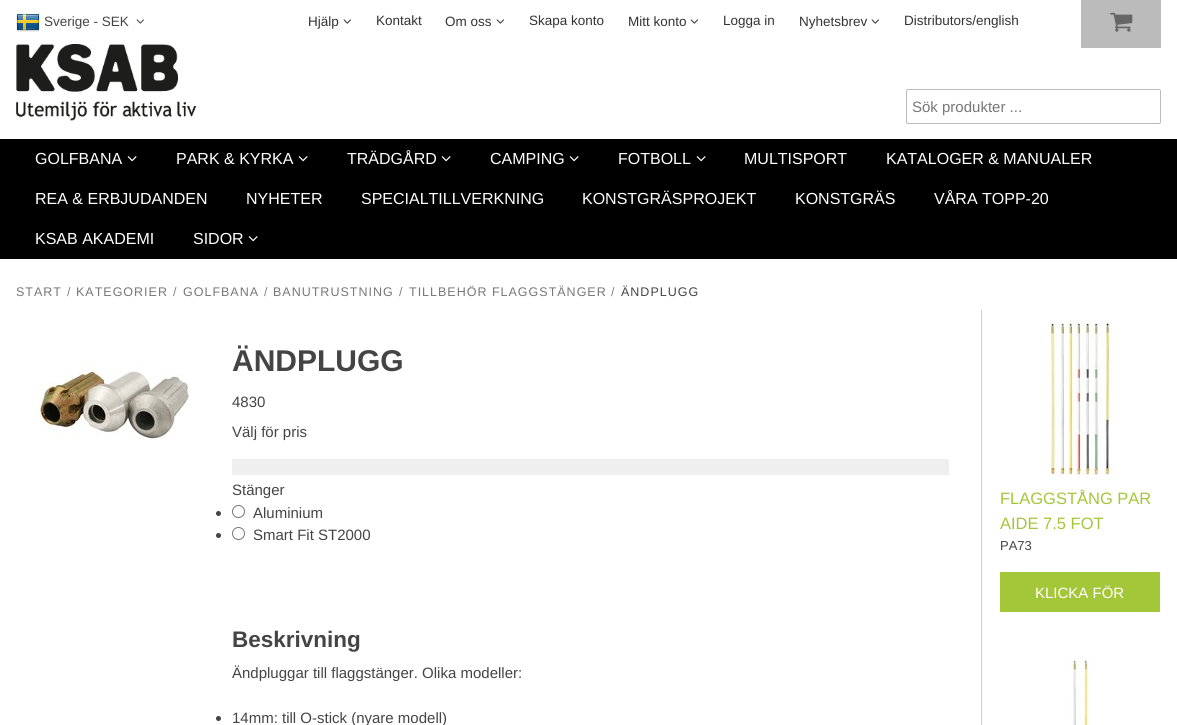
#include <cairo.h>
#include <math.h>
#include <stddef.h>

static cairo_t *c;
static void C(unsigned color){cairo_set_source_rgb(c, (color >> 16) / 255.0, (color >> 8 & 255) / 255.0, (color & 255) / 255.0);}
static void F(const char *family, double size, int italic, int bold){cairo_select_font_face(c, family, italic ? CAIRO_FONT_SLANT_ITALIC : CAIRO_FONT_SLANT_NORMAL,bold ? CAIRO_FONT_WEIGHT_BOLD : CAIRO_FONT_WEIGHT_NORMAL);cairo_set_font_size(c, size);}
static void T(double x, double y, const char *s){cairo_move_to(c, x, y);cairo_show_text(c, s);}
static void L(double x, double y, const char *s, double letter, double word){cairo_move_to(c, x, y);while (*s) {char ch[5] = {0};int n = 0;do ch[n++] = *s++; while ((*s & 0xC0) == 0x80);cairo_show_text(c, ch);cairo_rel_move_to(c, letter + word * (*ch == ' '), 0);}}
static void R(double x, double y, double w, double h){cairo_rectangle(c, x, y, w, h);cairo_fill(c);}
static void Q(double x, double y, double w, double h, double r){cairo_new_sub_path(c);cairo_arc(c, x + w - r, y + h - r, r, 0, M_PI / 2);cairo_arc(c, x + r, y + h - r, r, M_PI / 2, M_PI);cairo_arc(c, x + r, y + r, r, M_PI, 1.5 * M_PI);cairo_arc(c, x + w - r, y + r, r, 1.5 * M_PI, 2 * M_PI);cairo_close_path(c);}
static void I(const char *path, double x, double y, double w, double h){cairo_surface_t *image = cairo_image_surface_create_from_png(path);cairo_save(c);cairo_set_source_surface(c, image, x, y);cairo_rectangle(c, x, y, w, h);cairo_fill(c);cairo_restore(c);cairo_surface_destroy(image);}
int main(void) {
cairo_surface_t *surface = cairo_image_surface_create(CAIRO_FORMAT_RGB24, 1177, 725);
c = cairo_create(surface);
cairo_font_options_t *options = cairo_font_options_create();
cairo_font_options_set_hint_metrics(options, CAIRO_HINT_METRICS_OFF);
cairo_font_options_set_hint_style(options, CAIRO_HINT_STYLE_NONE);
cairo_set_font_options(c, options);
cairo_set_miter_limit(c, 4);
C(0xffffff);
cairo_paint(c);
I("1.png",16,14,24,18);
F("Liberation Sans",13.5,0,0);
C(0x444444);
T(44,26,"Sverige - SEK");
I("2.png",136,19,8,5);
C(0x333333);
T(308,26,"Hjälp");
I("3.png",343,19,8,5);
T(376,25,"Kontakt");
T(445,26,"Om oss");
I("3.png",496,19,8,5);
T(529,25,"Skapa konto");
T(628,26,"Mitt konto");
I("3.png",690,19,8,5);
T(723,25,"Logga in");
T(799,26,"Nyhetsbrev");
I("3.png",871,19,8,5);
T(904,25,"Distributors/english");
C(0xbbbbbb);
R(1081,0,80,48);
I("4.png",1110,12,23,20);
I("5.png",16,44,180,77);
Q(906.5,89.5,254,34,1.5);
cairo_set_line_width(c,1);
cairo_stroke(c);
F("Liberation Sans",15,0,0);
C(0x777777);
T(912,112,"Sök produkter ...");
C(0x000000);
R(0,139,1177,120);
F("Liberation Sans",16,0,0);
C(0xffffff);
T(35,164,"GOLFBANA");
I("6.png",127,156,10,6);
T(176,164,"PARK & KYRKA");
I("6.png",298,156,10,6);
T(347,164,"TRÄDGÅRD");
I("6.png",441,156,10,6);
T(490,164,"CAMPING");
I("6.png",569,156,10,6);
T(618,164,"FOTBOLL");
I("6.png",696,156,10,6);
T(744,164,"MULTISPORT");
T(886,164,"KATALOGER & MANUALER");
T(35,204,"REA & ERBJUDANDEN");
T(246,204,"NYHETER");
T(361,204,"SPECIALTILLVERKNING");
T(582,204,"KONSTGRÄSPROJEKT");
T(795,204,"KONSTGRÄS");
T(934,204,"VÅRA TOPP-20");
T(35,244,"KSAB AKADEMI");
T(193,244,"SIDOR");
I("6.png",248,236,10,6);
F("Liberation Sans",12.5,0,0);
C(0x777777);
L(16,296,"START",1,0);
C(0x808080);
L(67,296,"/",1,0);
C(0x777777);
L(76,296,"KATEGORIER",1,0);
C(0x808080);
L(173,296,"/",1,0);
C(0x777777);
L(183,296,"GOLFBANA",1,0);
C(0x808080);
L(264,296,"/",1,0);
C(0x777777);
L(273,296,"BANUTRUSTNING",1,0);
C(0x808080);
L(399,296,"/",1,0);
C(0x777777);
L(409,296,"TILLBEHÖR FLAGGSTÄNGER",1,0);
C(0x808080);
L(611,296,"/",1,0);
C(0x444444);
L(621,296,"ÄNDPLUGG",1,0);
I("7.png",32,362,160,77);
F("Liberation Sans",30,0,1);
T(232,371,"ÄNDPLUGG");
F("Liberation Sans",15,0,0);
T(232,407,"4830");
T(232,437,"Välj för pris");
C(0xefefef);
R(232,459,717,16);
C(0x444444);
T(232,495,"Stänger");
cairo_new_path(c);
cairo_arc(c,218.5,513.5,2.5,0,2 * M_PI);
cairo_fill(c);
cairo_arc(c,238.5,511.5,6,0,2 * M_PI);
C(0x767676);
cairo_stroke(c);
C(0x444444);
T(253,518,"Aluminium");
cairo_new_path(c);
cairo_arc(c,218.5,535.5,2.5,0,2 * M_PI);
cairo_fill(c);
cairo_arc(c,238.5,533.5,6,0,2 * M_PI);
C(0x767676);
cairo_stroke(c);
C(0x444444);
T(253,540,"Smart Fit ST2000");
F("Liberation Sans",22.5,0,1);
T(232,647,"Beskrivning");
F("Liberation Sans",15,0,0);
T(232,678,"Ändpluggar till flaggstänger. Olika modeller:");
cairo_new_path(c);
cairo_arc(c,218.5,718.5,2.5,0,2 * M_PI);
cairo_fill(c);
T(232,723,"14mm: till O-stick (nyare modell)");
C(0xcccccc);
R(981,310,1,415);
I("8.png",1050,320,64,160);
F("Liberation Sans",16.5,0,0);
C(0xa4c639);
T(1000,504,"FLAGGSTÅNG PAR");
T(1000,529,"AIDE 7.5 FOT");
F("Liberation Sans",13,0,0);
C(0x444444);
T(1000,550,"PA73");
C(0xa4c639);
R(1000,572,160,40);
F("Liberation Sans",15,0,0);
C(0xffffff);
T(1035,598,"KLICKA FÖR");
I("9.png",1067,660,23,65);
cairo_surface_write_to_png(surface, "o.png");
cairo_font_options_destroy(options);
cairo_destroy(c);
cairo_surface_destroy(surface);
return 0;
}
